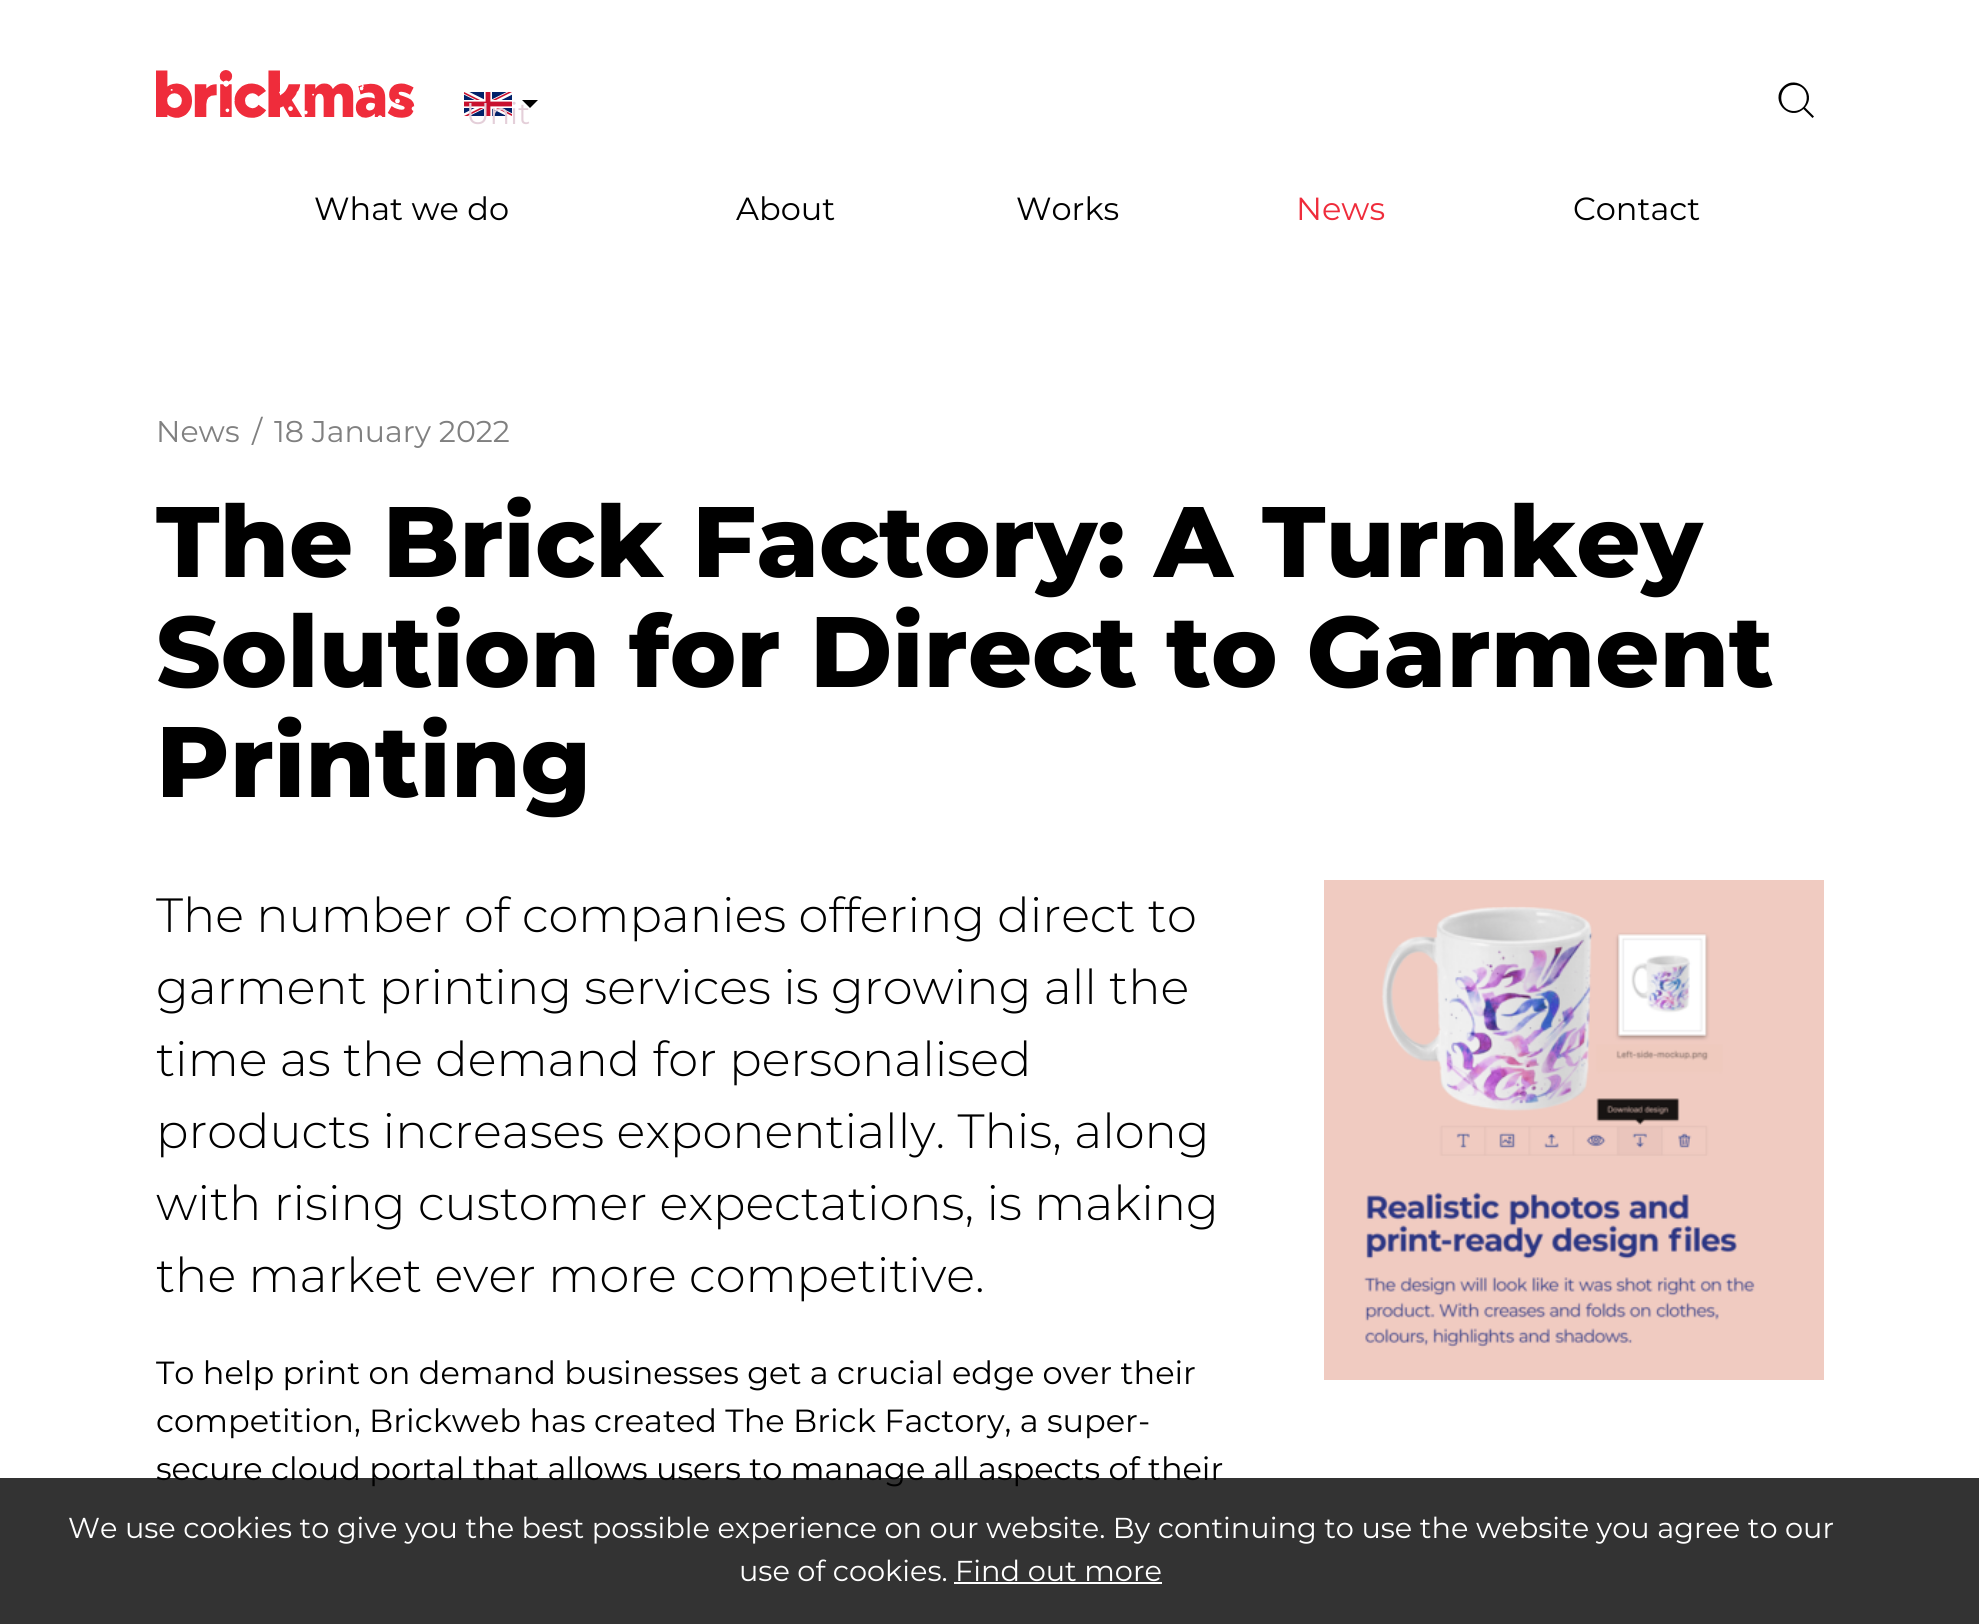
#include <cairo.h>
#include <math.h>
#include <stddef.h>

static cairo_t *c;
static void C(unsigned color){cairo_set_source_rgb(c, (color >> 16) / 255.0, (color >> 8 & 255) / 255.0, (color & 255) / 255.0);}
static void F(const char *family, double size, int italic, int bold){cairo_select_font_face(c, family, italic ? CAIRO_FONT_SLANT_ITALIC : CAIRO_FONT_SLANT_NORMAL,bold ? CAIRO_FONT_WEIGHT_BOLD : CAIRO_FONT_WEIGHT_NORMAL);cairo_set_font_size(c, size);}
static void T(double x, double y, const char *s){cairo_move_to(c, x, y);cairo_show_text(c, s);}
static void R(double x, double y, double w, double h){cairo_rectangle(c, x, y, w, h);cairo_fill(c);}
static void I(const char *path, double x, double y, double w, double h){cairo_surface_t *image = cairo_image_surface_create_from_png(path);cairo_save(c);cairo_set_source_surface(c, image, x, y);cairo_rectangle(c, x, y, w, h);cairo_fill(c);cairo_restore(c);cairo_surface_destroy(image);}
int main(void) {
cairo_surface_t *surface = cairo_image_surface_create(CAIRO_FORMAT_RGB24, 1979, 1624);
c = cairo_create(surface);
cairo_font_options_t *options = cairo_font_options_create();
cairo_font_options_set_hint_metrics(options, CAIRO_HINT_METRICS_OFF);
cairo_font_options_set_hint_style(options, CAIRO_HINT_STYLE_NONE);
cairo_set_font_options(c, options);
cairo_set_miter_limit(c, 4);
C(0xffffff);
cairo_paint(c);
I("1.png",156,70,259,48);
I("2.png",464,92,48,24);
C(0x000000);
cairo_new_path(c);
cairo_move_to(c,522,100);
cairo_line_to(c,538,100);
cairo_line_to(c,530,108);
cairo_close_path(c);
cairo_fill(c);
F("Montserrat",30,0,0);
C(0xe4cfd9);
T(466,124,"Unit");
C(0x000000);
cairo_new_path(c);
cairo_move_to(c,1805,107.5);
cairo_curve_to(c,1818,93,1796.5,73.5,1783,87);
cairo_curve_to(c,1769.5,100.5,1789,122,1803.5,109);
cairo_line_to(c,1812.5,118);
cairo_line_to(c,1814,116.5);
cairo_close_path(c);
cairo_move_to(c,1794,111);
cairo_curve_to(c,1777,111,1777,85,1794,85);
cairo_curve_to(c,1811,85,1811,110.5,1794,111);
cairo_close_path(c);
cairo_fill(c);
F("Montserrat",32,0,0);
T(314,220,"What we do");
T(736,220,"About");
T(1016,220,"Works");
C(0xef2c3b);
T(1296,220,"News");
C(0x000000);
T(1573,220,"Contact");
F("Montserrat",30,0,0);
C(0x808080);
T(156,442,"News");
T(252,442,"/");
T(274,442,"18 January 2022");
F("Montserrat ExtraBold",100,0,0);
C(0x000000);
T(156,577,"The Brick Factory: A Turnkey");
T(156,687,"Solution for Direct to Garment");
T(156,797,"Printing");
F("Montserrat Light",48,0,0);
T(156,932,"The number of companies offering direct to");
T(156,1004,"garment printing services is growing all the");
T(156,1076,"time as the demand for personalised");
T(156,1148,"products increases exponentially. This, along");
T(156,1220,"with rising customer expectations, is making");
T(156,1292,"the market ever more competitive.");
I("3.png",1324,880,500,500);
F("Montserrat",32,0,0);
T(156,1384,"To help print on demand businesses get a crucial edge over their");
T(156,1432,"competition, Brickweb has created The Brick Factory, a super-");
T(156,1480,"secure cloud portal that allows users to manage all aspects of their");
cairo_set_source_rgba(c,0,0,0,0.8);
R(0,1478,1979,146);
F("Montserrat",28.8,0,0);
C(0xffffff);
T(68,1538,"We use cookies to give you the best possible experience on our website. By continuing to use the website you agree to our");
T(739,1581,"use of cookies. Find out more");
R(954,1582,208,2);
cairo_surface_write_to_png(surface, "o.png");
cairo_font_options_destroy(options);
cairo_destroy(c);
cairo_surface_destroy(surface);
return 0;
}
